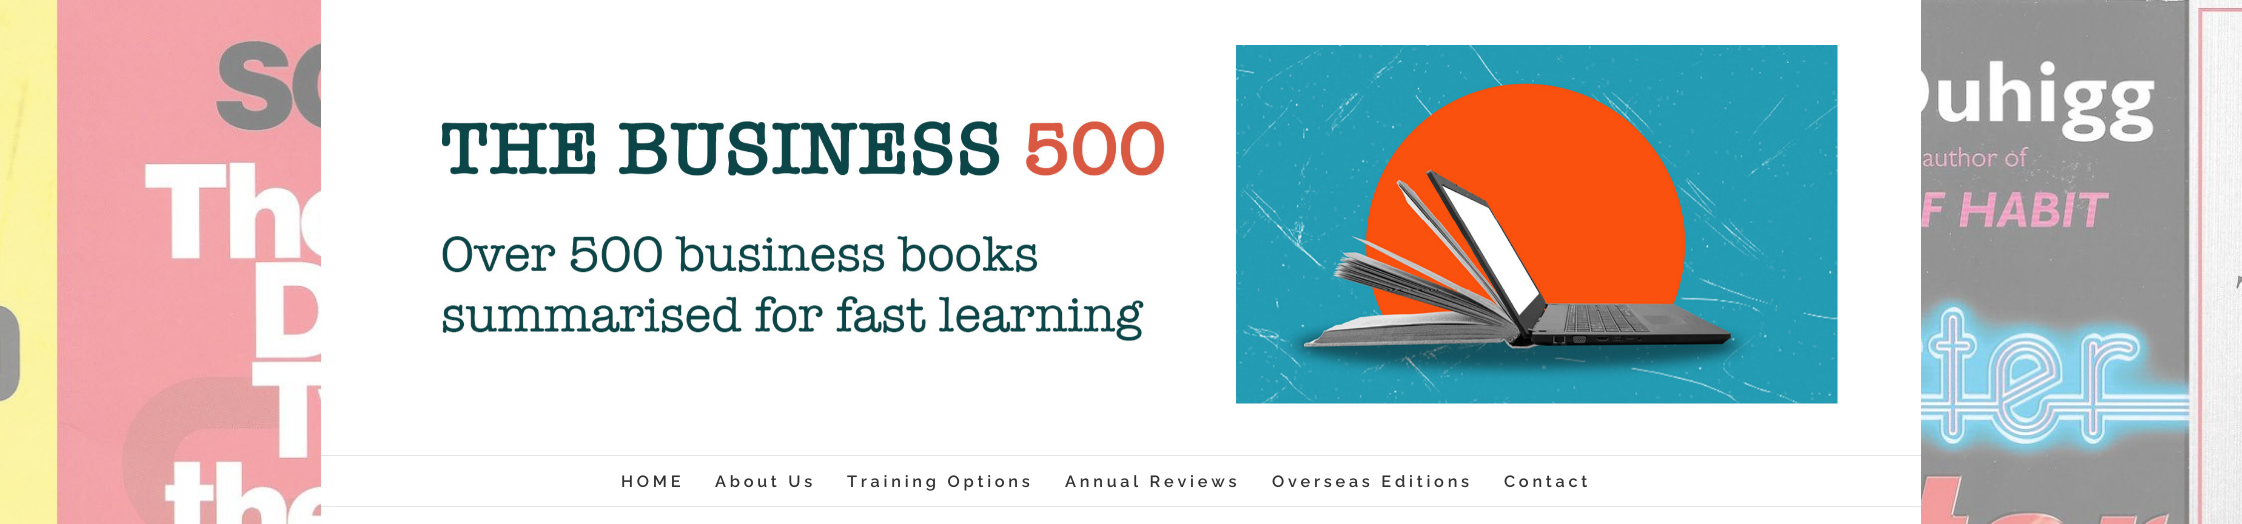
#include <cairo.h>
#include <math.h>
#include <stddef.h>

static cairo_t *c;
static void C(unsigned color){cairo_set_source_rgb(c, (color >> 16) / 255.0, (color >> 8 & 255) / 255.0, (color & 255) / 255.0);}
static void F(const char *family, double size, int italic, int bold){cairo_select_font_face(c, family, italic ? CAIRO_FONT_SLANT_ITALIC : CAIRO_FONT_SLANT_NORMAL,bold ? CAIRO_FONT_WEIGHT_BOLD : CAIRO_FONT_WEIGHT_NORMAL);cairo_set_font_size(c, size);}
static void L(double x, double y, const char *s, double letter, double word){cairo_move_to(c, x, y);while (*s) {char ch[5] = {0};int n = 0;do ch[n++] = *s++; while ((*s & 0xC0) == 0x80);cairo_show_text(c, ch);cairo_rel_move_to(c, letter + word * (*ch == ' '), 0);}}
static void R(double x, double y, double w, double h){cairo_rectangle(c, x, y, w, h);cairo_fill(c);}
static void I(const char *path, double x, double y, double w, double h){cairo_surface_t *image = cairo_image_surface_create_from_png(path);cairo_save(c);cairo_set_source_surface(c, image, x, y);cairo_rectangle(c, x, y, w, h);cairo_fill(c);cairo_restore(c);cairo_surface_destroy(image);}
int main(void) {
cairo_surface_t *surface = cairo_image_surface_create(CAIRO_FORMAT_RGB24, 2242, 524);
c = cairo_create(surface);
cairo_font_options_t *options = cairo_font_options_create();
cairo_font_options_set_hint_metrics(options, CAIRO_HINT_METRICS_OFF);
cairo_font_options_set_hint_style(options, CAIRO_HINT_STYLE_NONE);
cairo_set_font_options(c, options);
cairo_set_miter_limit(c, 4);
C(0xffffff);
cairo_paint(c);
I("1.png",0,0,2242,524);
C(0xffffff);
R(321,456,1600,68);
R(321,0,1600,455);
C(0xe5e5e5);
R(321,455,1600,1);
I("2.png",439,45,1399,359);
R(321,506,1600,1);
F("Raleway SemiBold",16.25,0,0);
C(0x333333);
L(621,487,"HOME",3.75,0);
L(715,487,"About Us",3.75,0);
L(847,487,"Training Options",3.75,0);
L(1065,487,"Annual Reviews",3.75,0);
L(1272,487,"Overseas Editions",3.75,0);
L(1504,487,"Contact",3.75,0);
cairo_surface_write_to_png(surface, "o.png");
cairo_font_options_destroy(options);
cairo_destroy(c);
cairo_surface_destroy(surface);
return 0;
}
